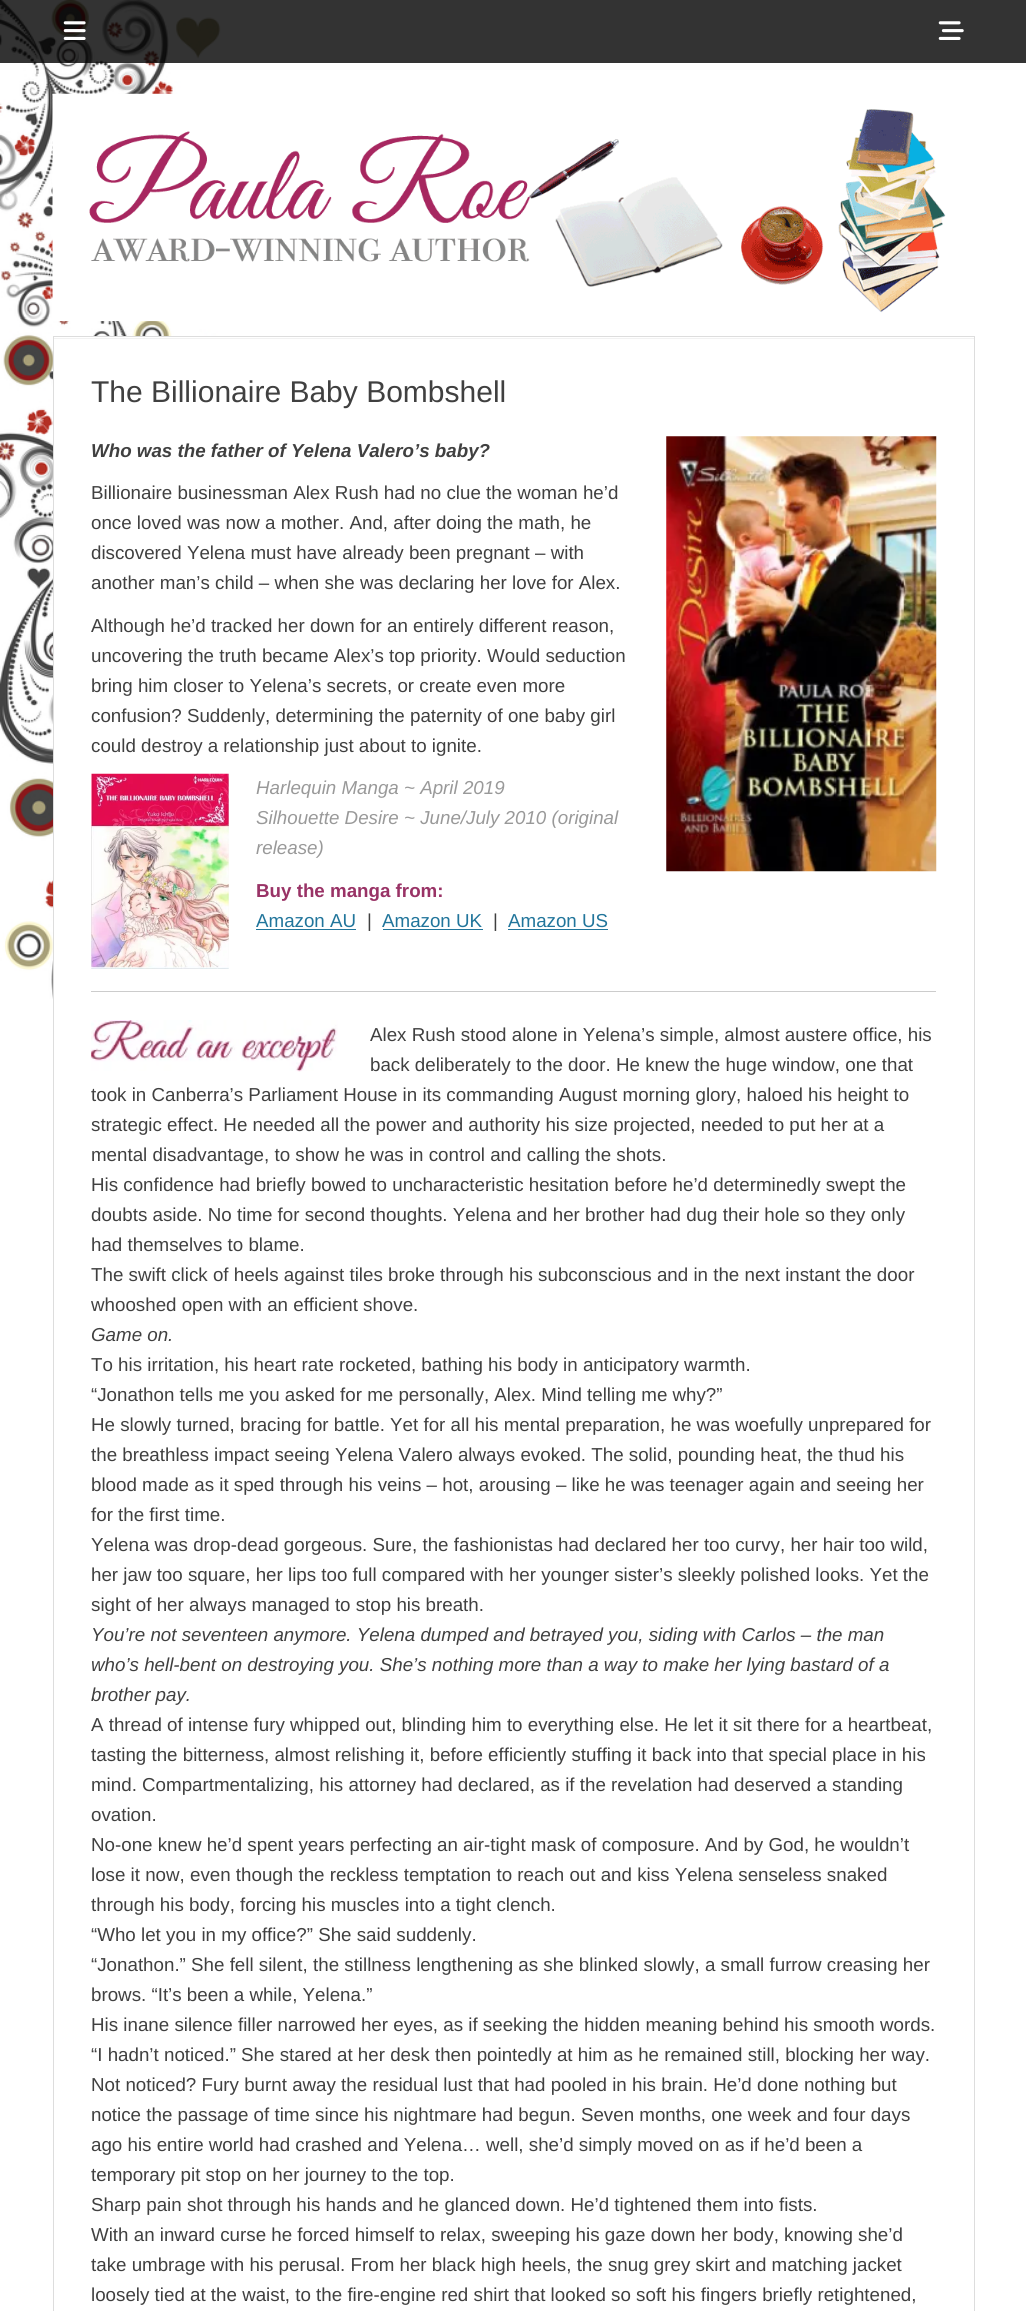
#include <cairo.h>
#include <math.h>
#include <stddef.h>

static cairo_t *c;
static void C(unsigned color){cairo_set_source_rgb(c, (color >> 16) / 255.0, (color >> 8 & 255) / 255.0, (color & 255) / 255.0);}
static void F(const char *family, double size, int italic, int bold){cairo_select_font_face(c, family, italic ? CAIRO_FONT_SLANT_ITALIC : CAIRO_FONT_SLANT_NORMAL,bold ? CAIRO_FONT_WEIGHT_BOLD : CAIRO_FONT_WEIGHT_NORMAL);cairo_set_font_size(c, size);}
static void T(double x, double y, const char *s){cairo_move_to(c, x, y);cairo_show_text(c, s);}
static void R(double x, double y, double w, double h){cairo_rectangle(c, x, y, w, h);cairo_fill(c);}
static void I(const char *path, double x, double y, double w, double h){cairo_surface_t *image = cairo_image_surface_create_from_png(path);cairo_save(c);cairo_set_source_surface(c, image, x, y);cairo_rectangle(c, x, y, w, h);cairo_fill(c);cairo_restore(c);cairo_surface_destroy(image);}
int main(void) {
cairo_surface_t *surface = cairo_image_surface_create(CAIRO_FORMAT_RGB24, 1026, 2311);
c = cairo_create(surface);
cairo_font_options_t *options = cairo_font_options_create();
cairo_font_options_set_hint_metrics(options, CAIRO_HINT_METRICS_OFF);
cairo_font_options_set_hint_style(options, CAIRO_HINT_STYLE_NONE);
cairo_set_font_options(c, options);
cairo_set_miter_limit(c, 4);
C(0xffffff);
cairo_paint(c);
I("1.png",0,0,708,1001);
cairo_set_source_rgba(c,0,0,0,0.8);
R(0,0,1026,63);
I("2.png",63,21,23,19);
I("3.png",938,21,26,19);
I("4.png",52,93,894,228);
C(0xffffff);
R(54,337,654,664);
C(0xf2f2f2);
R(54,338,920,1);
cairo_rectangle(c,53.5,336.5,921,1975);
C(0xdddddd);
cairo_set_line_width(c,1);
cairo_stroke(c);
F("Liberation Sans",30,0,0);
C(0x404040);
T(91,402,"The Billionaire Baby Bombshell");
F("Liberation Sans",18.75,1,1);
T(91,457,"Who was the father of Yelena Valero’s baby?");
I("5.png",666,436,271,436);
F("Liberation Sans",18.75,0,0);
T(91,499,"Billionaire businessman Alex Rush had no clue the woman he’d");
T(91,529,"once loved was now a mother. And, after doing the math, he");
T(91,559,"discovered Yelena must have already been pregnant – with");
T(91,589,"another man’s child – when she was declaring her love for Alex.");
T(91,632,"Although he’d tracked her down for an entirely different reason,");
T(91,662,"uncovering the truth became Alex’s top priority. Would seduction");
T(91,692,"bring him closer to Yelena’s secrets, or create even more");
T(91,722,"confusion? Suddenly, determining the paternity of one baby girl");
T(91,752,"could destroy a relationship just about to ignite.");
I("6.png",91,773,138,196);
F("Liberation Sans",18.75,1,0);
C(0x999999);
T(256,794,"Harlequin Manga ~ April 2019");
T(256,824,"Silhouette Desire ~ June/July 2010 (original");
T(256,854,"release)");
F("Liberation Sans",18.75,0,1);
C(0x993366);
T(256,897,"Buy the manga from:");
F("Liberation Sans",18.75,0,0);
C(0x21759b);
T(256,927,"Amazon AU");
R(256,929,100,1);
C(0x404040);
T(367,927,"|");
C(0x21759b);
T(382,927,"Amazon UK");
R(383,929,100,1);
C(0x404040);
T(493,927,"|");
C(0x21759b);
T(508,927,"Amazon US");
R(508,929,100,1);
C(0xcccccc);
R(91,991,845,1);
I("7.png",91,1020,247,52);
C(0x404040);
T(370,1041,"Alex Rush stood alone in Yelena’s simple, almost austere office, his");
T(370,1071,"back deliberately to the door. He knew the huge window, one that");
T(91,1101,"took in Canberra’s Parliament House in its commanding August morning glory, haloed his height to");
T(91,1131,"strategic effect. He needed all the power and authority his size projected, needed to put her at a");
T(91,1161,"mental disadvantage, to show he was in control and calling the shots.");
T(91,1191,"His confidence had briefly bowed to uncharacteristic hesitation before he’d determinedly swept the");
T(91,1221,"doubts aside. No time for second thoughts. Yelena and her brother had dug their hole so they only");
T(91,1251,"had themselves to blame.");
T(91,1281,"The swift click of heels against tiles broke through his subconscious and in the next instant the door");
T(91,1311,"whooshed open with an efficient shove.");
F("Liberation Sans",18.75,1,0);
T(91,1341,"Game on.");
F("Liberation Sans",18.75,0,0);
T(91,1371,"To his irritation, his heart rate rocketed, bathing his body in anticipatory warmth.");
T(91,1401,"“Jonathon tells me you asked for me personally, Alex. Mind telling me why?”");
T(91,1431,"He slowly turned, bracing for battle. Yet for all his mental preparation, he was woefully unprepared for");
T(91,1461,"the breathless impact seeing Yelena Valero always evoked. The solid, pounding heat, the thud his");
T(91,1491,"blood made as it sped through his veins – hot, arousing – like he was teenager again and seeing her");
T(91,1521,"for the first time.");
T(91,1551,"Yelena was drop-dead gorgeous. Sure, the fashionistas had declared her too curvy, her hair too wild,");
T(91,1581,"her jaw too square, her lips too full compared with her younger sister’s sleekly polished looks. Yet the");
T(91,1611,"sight of her always managed to stop his breath.");
F("Liberation Sans",18.75,1,0);
T(91,1641,"You’re not seventeen anymore. Yelena dumped and betrayed you, siding with Carlos – the man");
T(91,1671,"who’s hell-bent on destroying you. She’s nothing more than a way to make her lying bastard of a");
T(91,1701,"brother pay.");
F("Liberation Sans",18.75,0,0);
T(91,1731,"A thread of intense fury whipped out, blinding him to everything else. He let it sit there for a heartbeat,");
T(91,1761,"tasting the bitterness, almost relishing it, before efficiently stuffing it back into that special place in his");
T(91,1791,"mind. Compartmentalizing, his attorney had declared, as if the revelation had deserved a standing");
T(91,1821,"ovation.");
T(91,1851,"No-one knew he’d spent years perfecting an air-tight mask of composure. And by God, he wouldn’t");
T(91,1881,"lose it now, even though the reckless temptation to reach out and kiss Yelena senseless snaked");
T(91,1911,"through his body, forcing his muscles into a tight clench.");
T(91,1941,"“Who let you in my office?” She said suddenly.");
T(91,1971,"“Jonathon.” She fell silent, the stillness lengthening as she blinked slowly, a small furrow creasing her");
T(91,2001,"brows. “It’s been a while, Yelena.”");
T(91,2031,"His inane silence filler narrowed her eyes, as if seeking the hidden meaning behind his smooth words.");
T(91,2061,"“I hadn’t noticed.” She stared at her desk then pointedly at him as he remained still, blocking her way.");
T(91,2091,"Not noticed? Fury burnt away the residual lust that had pooled in his brain. He’d done nothing but");
T(91,2121,"notice the passage of time since his nightmare had begun. Seven months, one week and four days");
T(91,2151,"ago his entire world had crashed and Yelena… well, she’d simply moved on as if he’d been a");
T(91,2181,"temporary pit stop on her journey to the top.");
T(91,2211,"Sharp pain shot through his hands and he glanced down. He’d tightened them into fists.");
T(91,2241,"With an inward curse he forced himself to relax, sweeping his gaze down her body, knowing she’d");
T(91,2271,"take umbrage with his perusal. From her black high heels, the snug grey skirt and matching jacket");
T(91,2301,"loosely tied at the waist, to the fire-engine red shirt that looked so soft his fingers briefly retightened,");
cairo_surface_write_to_png(surface, "o.png");
cairo_font_options_destroy(options);
cairo_destroy(c);
cairo_surface_destroy(surface);
return 0;
}
